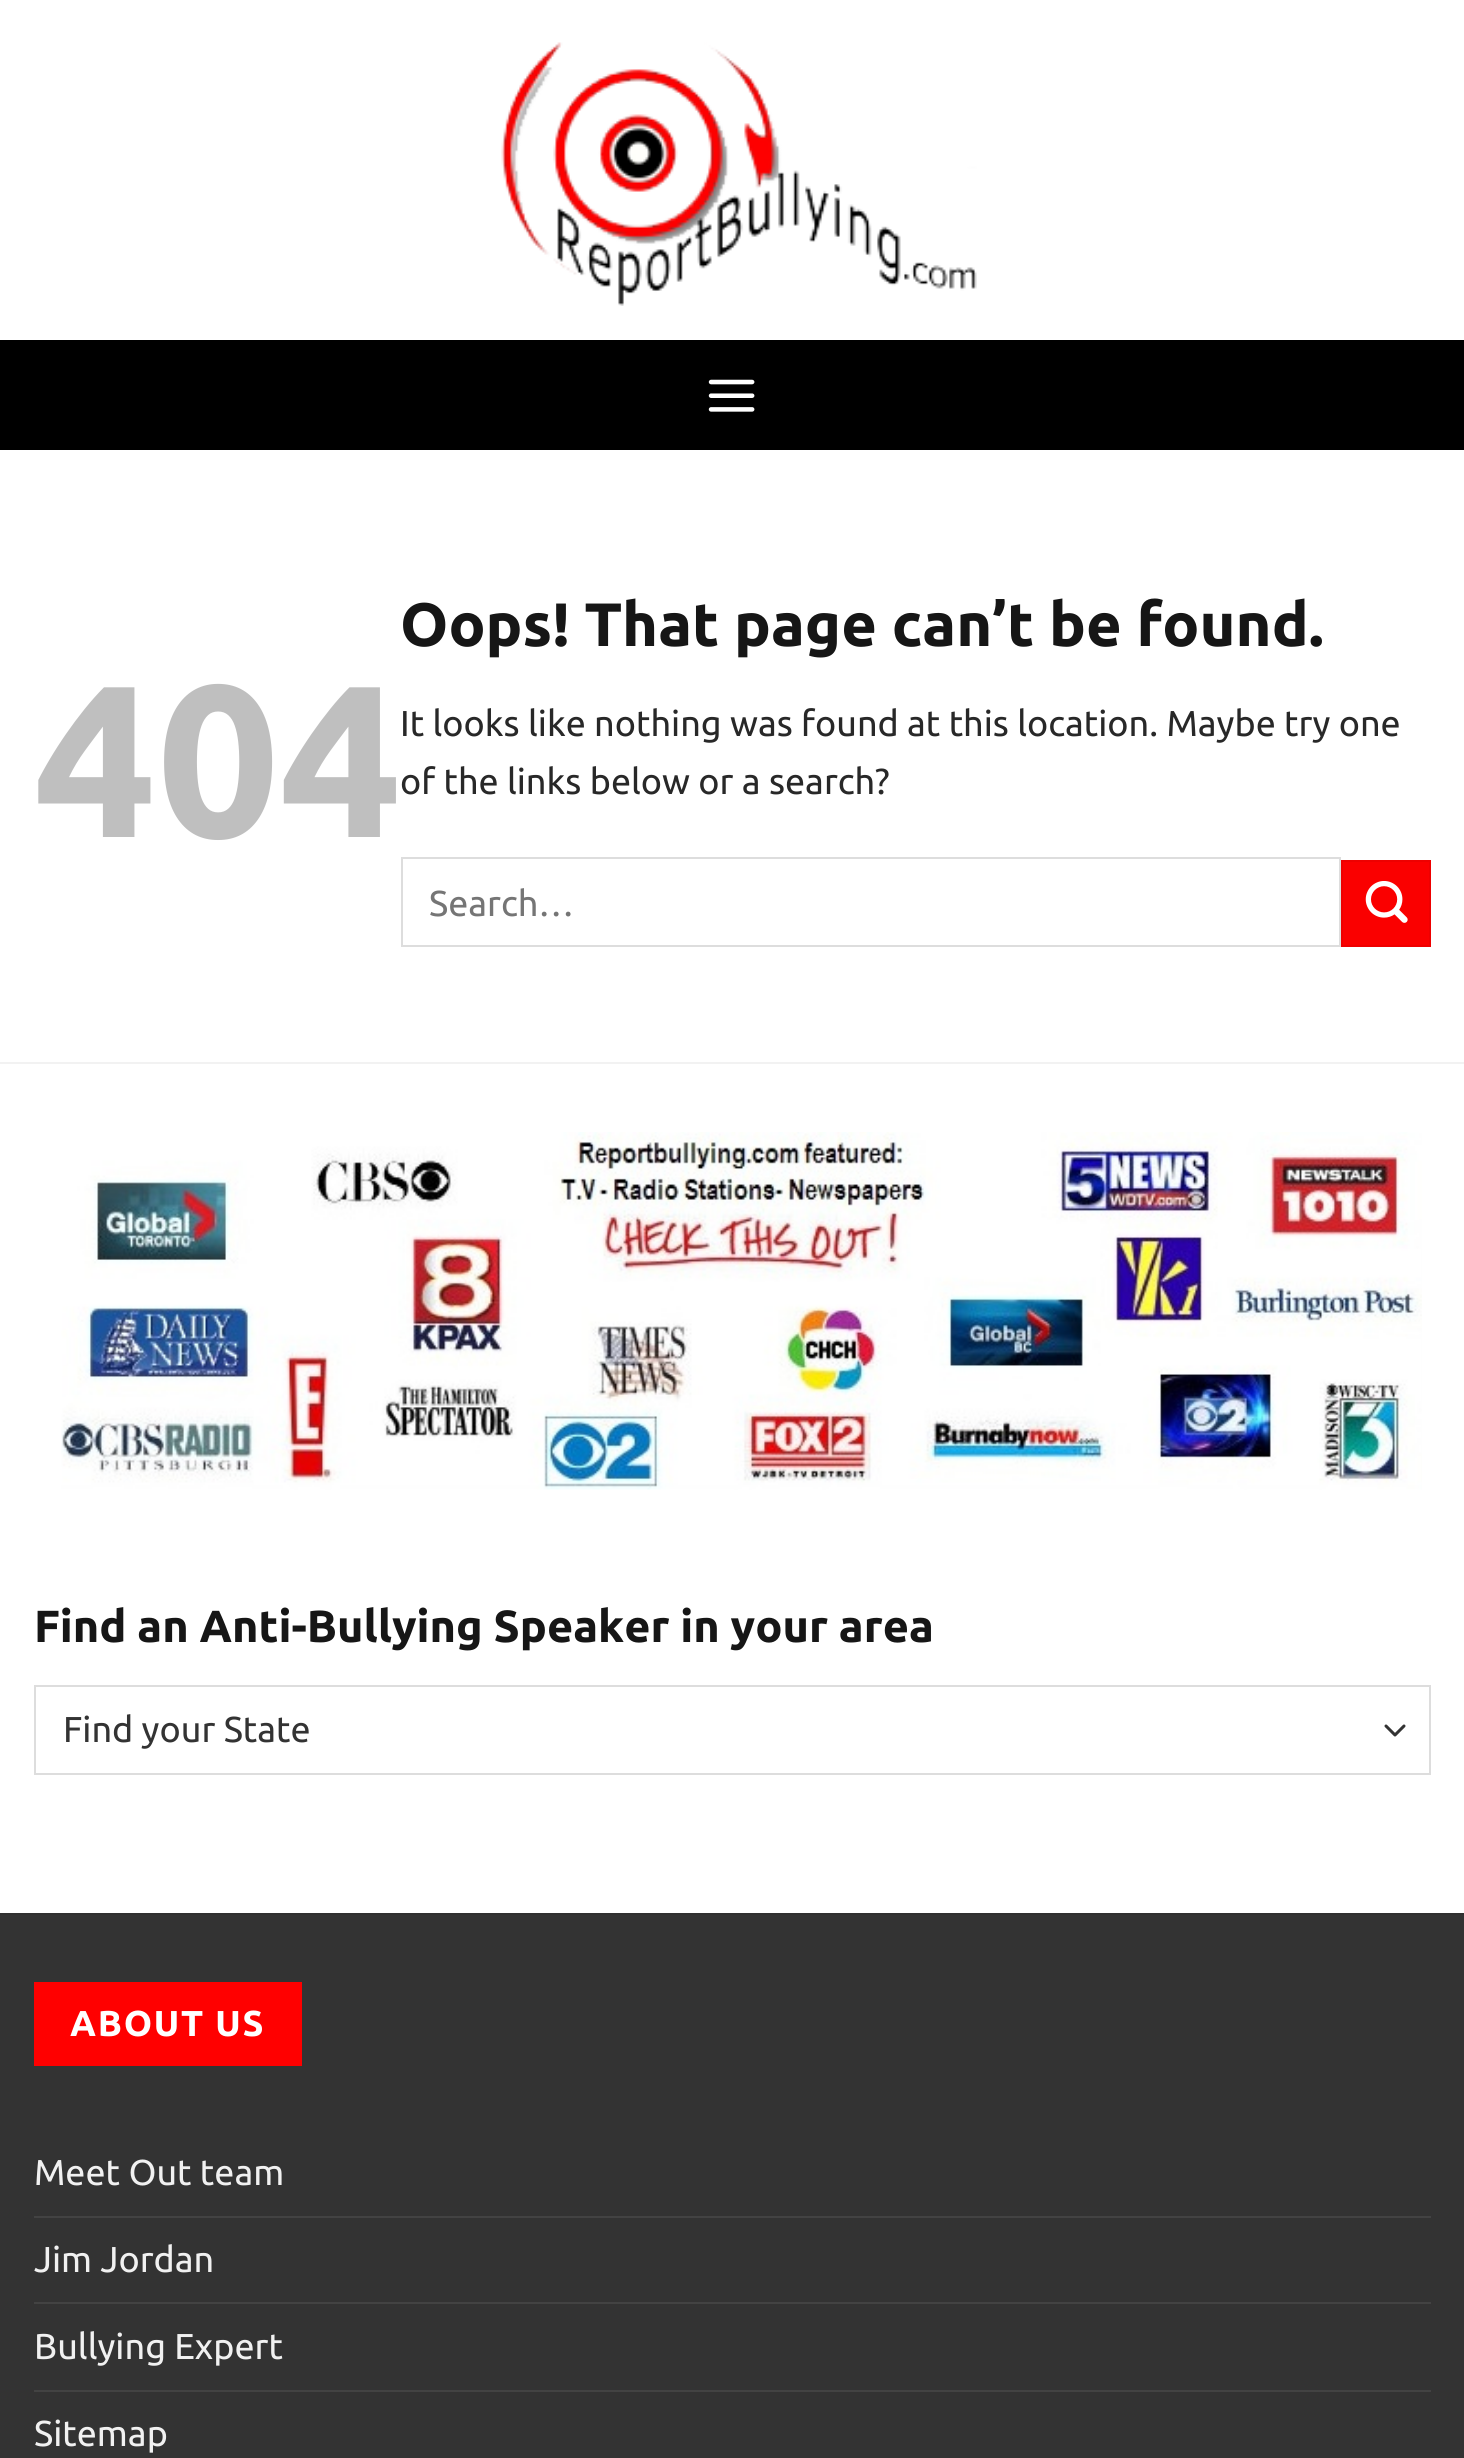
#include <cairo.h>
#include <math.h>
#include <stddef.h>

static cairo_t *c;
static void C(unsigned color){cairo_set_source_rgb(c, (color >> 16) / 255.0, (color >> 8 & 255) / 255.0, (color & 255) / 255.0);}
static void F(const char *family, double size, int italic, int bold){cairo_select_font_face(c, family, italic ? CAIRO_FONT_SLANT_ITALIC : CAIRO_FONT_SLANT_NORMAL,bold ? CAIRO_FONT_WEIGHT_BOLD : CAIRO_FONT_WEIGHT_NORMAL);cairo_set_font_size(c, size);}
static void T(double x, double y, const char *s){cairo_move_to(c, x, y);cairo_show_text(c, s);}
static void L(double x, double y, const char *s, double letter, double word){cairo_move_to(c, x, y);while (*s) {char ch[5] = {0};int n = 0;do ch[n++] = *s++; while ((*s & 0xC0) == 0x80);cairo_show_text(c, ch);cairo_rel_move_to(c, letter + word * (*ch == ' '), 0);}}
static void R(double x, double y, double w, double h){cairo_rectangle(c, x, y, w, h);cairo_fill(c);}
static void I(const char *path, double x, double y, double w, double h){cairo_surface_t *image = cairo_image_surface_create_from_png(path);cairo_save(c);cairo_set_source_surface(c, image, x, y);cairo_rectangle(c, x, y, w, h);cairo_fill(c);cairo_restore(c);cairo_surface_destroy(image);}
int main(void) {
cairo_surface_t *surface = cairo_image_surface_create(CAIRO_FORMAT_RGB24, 1464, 2458);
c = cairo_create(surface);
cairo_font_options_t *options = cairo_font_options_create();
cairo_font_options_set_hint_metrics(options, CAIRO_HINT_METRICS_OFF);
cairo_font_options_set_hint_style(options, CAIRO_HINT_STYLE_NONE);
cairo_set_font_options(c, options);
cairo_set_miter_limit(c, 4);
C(0xffffff);
cairo_paint(c);
I("1.png",501,42,476,264);
C(0x000000);
R(0,340,1464,110);
I("2.png",708,379,47,33);
F("Ubuntu",216,0,1);
C(0xbfbfbf);
T(34,837,"404");
F("Ubuntu",61.25,0,1);
C(0x161616);
T(400,646,"Oops! That page can’t be found.");
F("Ubuntu",36,0,0);
C(0x282828);
T(400,736,"It looks like nothing was found at this location. Maybe try one");
T(400,794,"of the links below or a search?");
cairo_rectangle(c,402,858,938,88);
C(0xdddddd);
cairo_stroke(c);
C(0x757575);
T(429,916,"Search…");
C(0xfa0000);
cairo_rectangle(c,1342,861,88,85);
cairo_fill_preserve(c);
C(0xee0000);
cairo_stroke(c);
I("3.png",1365,881,43,42);
C(0xf2f2f2);
R(0,1062,1464,2);
I("4.png",61,1132,1361,358);
F("Ubuntu",45,0,1);
C(0x161616);
T(34,1642,"Find an Anti-Bullying Speaker in your area");
cairo_new_path(c);
cairo_move_to(c,1386,1726);
cairo_line_to(c,1395,1735);
cairo_line_to(c,1404,1726);
C(0x333333);
cairo_set_line_width(c,3);
cairo_set_line_cap(c,CAIRO_LINE_CAP_ROUND);
cairo_set_line_join(c,CAIRO_LINE_JOIN_ROUND);
cairo_stroke(c);
cairo_rectangle(c,35,1686,1395,88);
C(0xdddddd);
cairo_set_line_width(c,2);
cairo_set_line_cap(c,CAIRO_LINE_CAP_BUTT);
cairo_set_line_join(c,CAIRO_LINE_JOIN_MITER);
cairo_stroke(c);
F("Ubuntu",36,0,0);
C(0x333333);
T(63,1742,"Find your State");
R(0,1915,1464,543);
C(0x303030);
R(0,1913,1464,2);
C(0xff0000);
R(34,1982,268,84);
F("Ubuntu",36,0,1);
C(0xffffff);
L(70,2036,"ABOUT US",1.75,0);
F("Ubuntu",36,0,0);
C(0xf1f1f1);
T(34,2185,"Meet Out team");
C(0x434343);
R(34,2216,1397,2);
C(0xf1f1f1);
T(34,2272,"Jim Jordan");
C(0x434343);
R(34,2302,1397,2);
C(0xf1f1f1);
T(34,2359,"Bullying Expert");
C(0x434343);
R(34,2390,1397,2);
C(0xf1f1f1);
T(34,2446,"Sitemap");
cairo_surface_write_to_png(surface, "o.png");
cairo_font_options_destroy(options);
cairo_destroy(c);
cairo_surface_destroy(surface);
return 0;
}
